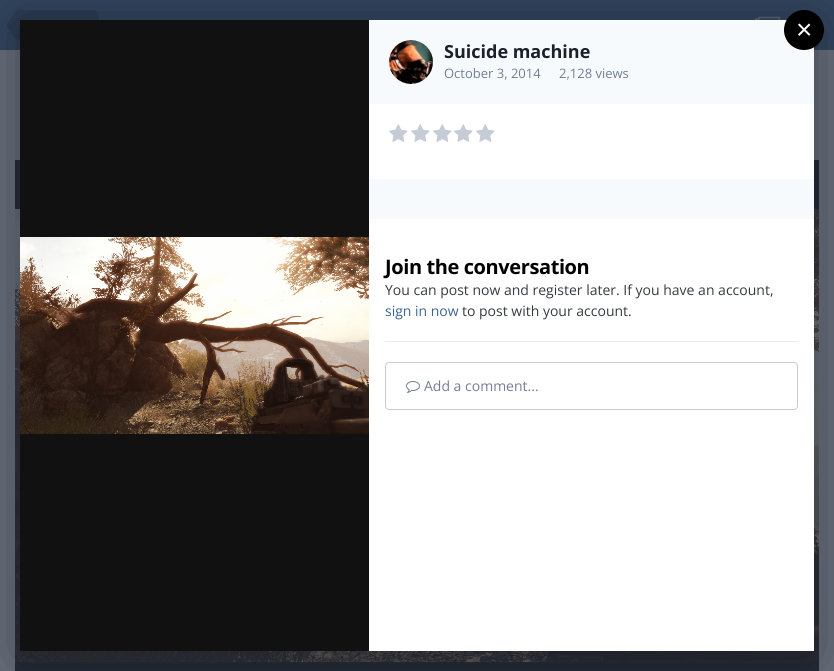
#include <cairo.h>
#include <math.h>
#include <stddef.h>

static cairo_t *c;
static void C(unsigned color){cairo_set_source_rgb(c, (color >> 16) / 255.0, (color >> 8 & 255) / 255.0, (color & 255) / 255.0);}
static void F(const char *family, double size, int italic, int bold){cairo_select_font_face(c, family, italic ? CAIRO_FONT_SLANT_ITALIC : CAIRO_FONT_SLANT_NORMAL,bold ? CAIRO_FONT_WEIGHT_BOLD : CAIRO_FONT_WEIGHT_NORMAL);cairo_set_font_size(c, size);}
static void T(double x, double y, const char *s){cairo_move_to(c, x, y);cairo_show_text(c, s);}
static void L(double x, double y, const char *s, double letter, double word){cairo_move_to(c, x, y);while (*s) {char ch[5] = {0};int n = 0;do ch[n++] = *s++; while ((*s & 0xC0) == 0x80);cairo_show_text(c, ch);cairo_rel_move_to(c, letter + word * (*ch == ' '), 0);}}
static void R(double x, double y, double w, double h){cairo_rectangle(c, x, y, w, h);cairo_fill(c);}
static void Q(double x, double y, double w, double h, double r){cairo_new_sub_path(c);cairo_arc(c, x + w - r, y + h - r, r, 0, M_PI / 2);cairo_arc(c, x + r, y + h - r, r, M_PI / 2, M_PI);cairo_arc(c, x + r, y + r, r, M_PI, 1.5 * M_PI);cairo_arc(c, x + w - r, y + r, r, 1.5 * M_PI, 2 * M_PI);cairo_close_path(c);}
static void S(double x, double y, double w, double h, double r, double blur, double alpha){cairo_push_group_with_content(c, CAIRO_CONTENT_ALPHA);cairo_set_operator(c, CAIRO_OPERATOR_SOURCE);for (int i = 15; i >= -15 && fmin(w, h) + blur * i / 3 > 0; i -= 2) {double e = blur * i / 6;cairo_set_source_rgba(c, 0, 0, 0, alpha * erfc((i - 1) / 8.5) / 2);Q(x - e, y - e, w + 2 * e, h + 2 * e, fmax(0, fmin(r + e + blur * .6, fmin(w, h) / 2 + e)));cairo_fill(c);}cairo_pattern_t *soft = cairo_pop_group(c);cairo_mask(c, soft);cairo_pattern_destroy(soft);}
static void I(const char *path, double x, double y, double w, double h){cairo_surface_t *image = cairo_image_surface_create_from_png(path);cairo_save(c);cairo_set_source_surface(c, image, x, y);cairo_rectangle(c, x, y, w, h);cairo_fill(c);cairo_restore(c);cairo_surface_destroy(image);}
int main(void) {
cairo_surface_t *surface = cairo_image_surface_create(CAIRO_FORMAT_RGB24, 834, 671);
c = cairo_create(surface);
cairo_font_options_t *options = cairo_font_options_create();
cairo_font_options_set_hint_metrics(options, CAIRO_HINT_METRICS_OFF);
cairo_font_options_set_hint_style(options, CAIRO_HINT_STYLE_NONE);
cairo_set_font_options(c, options);
cairo_set_miter_limit(c, 4);
C(0x676f7c);
cairo_paint(c);
C(0x32455f);
R(0,0,834,50);
C(0x2d3d54);
cairo_new_path(c);
cairo_move_to(c,20,10);
cairo_line_to(c,94,10);
cairo_curve_to(c,97,10,99,12,99,15);
cairo_line_to(c,99,35);
cairo_curve_to(c,99,38,97,40,94,40);
cairo_line_to(c,20,40);
cairo_close_path(c);
cairo_fill(c);
cairo_new_path(c);
cairo_move_to(c,20,25);
cairo_line_to(c,20,40);
cairo_curve_to(c,15.5,40,13.5,35.5,11,32);
cairo_curve_to(c,9.5,30,7,28,7,25);
cairo_close_path(c);
cairo_move_to(c,20,25);
cairo_line_to(c,7,25);
cairo_curve_to(c,7,22,9.5,20,11,18);
cairo_curve_to(c,13.5,14.5,15.5,10,20,10);
cairo_close_path(c);
cairo_fill(c);
I("1.png",755,16,26,4);
I("2.png",822,36,1,1);
C(0x252c38);
R(15,160,804,511);
I("7.png",15,209,804,453);
C(0x000000);
S(20,25,794,631,0,27.5,.4);
C(0xf7fafc);
R(369,20,445,84);
C(0x000000);
cairo_arc(c,804,30,20,0,2 * M_PI);
cairo_fill(c);
F("Liberation Sans",28,0,0);
C(0xffffff);
T(796,39,"×");
C(0x111111);
R(20,20,349,631);
I("3.png",20,237,349,197);
C(0xffffff);
R(369,104,445,547);
cairo_arc(c,411,62,22,0,2 * M_PI);
cairo_fill(c);
I("4.png",389,40,44,44);
F("Open Sans",18,0,1);
C(0x1a202c);
T(444,58,"Suicide machine");
F("Open Sans",13,0,0);
C(0x718096);
T(444,78,"October 3, 2014");
T(559,78,"2,128 views");
I("5.png",389,124,19,18);
I("5.png",411,124,19,18);
I("5.png",433,124,19,18);
I("5.png",454,124,19,18);
I("5.png",476,124,19,18);
C(0xf7fafc);
R(369,179,445,40);
C(0xeaecef);
R(385,341,413,1);
F("Open Sans",20,0,1);
C(0x000000);
L(385,274,"Join the conversation",-.4,0);
F("Open Sans",14,0,0);
C(0x353c41);
T(385,295,"You can post now and register later. If you have an account,");
C(0x3d6594);
T(385,316,"sign in now");
C(0x353c41);
T(462,316,"to post with your account.");
Q(385.5,362.5,412,47,3.5);
C(0xc6ccd5);
cairo_set_line_width(c,1);
cairo_stroke(c);
I("6.png",406,381,14,12);
C(0x718096);
T(424,391,"Add a comment...");
cairo_surface_write_to_png(surface, "o.png");
cairo_font_options_destroy(options);
cairo_destroy(c);
cairo_surface_destroy(surface);
return 0;
}
